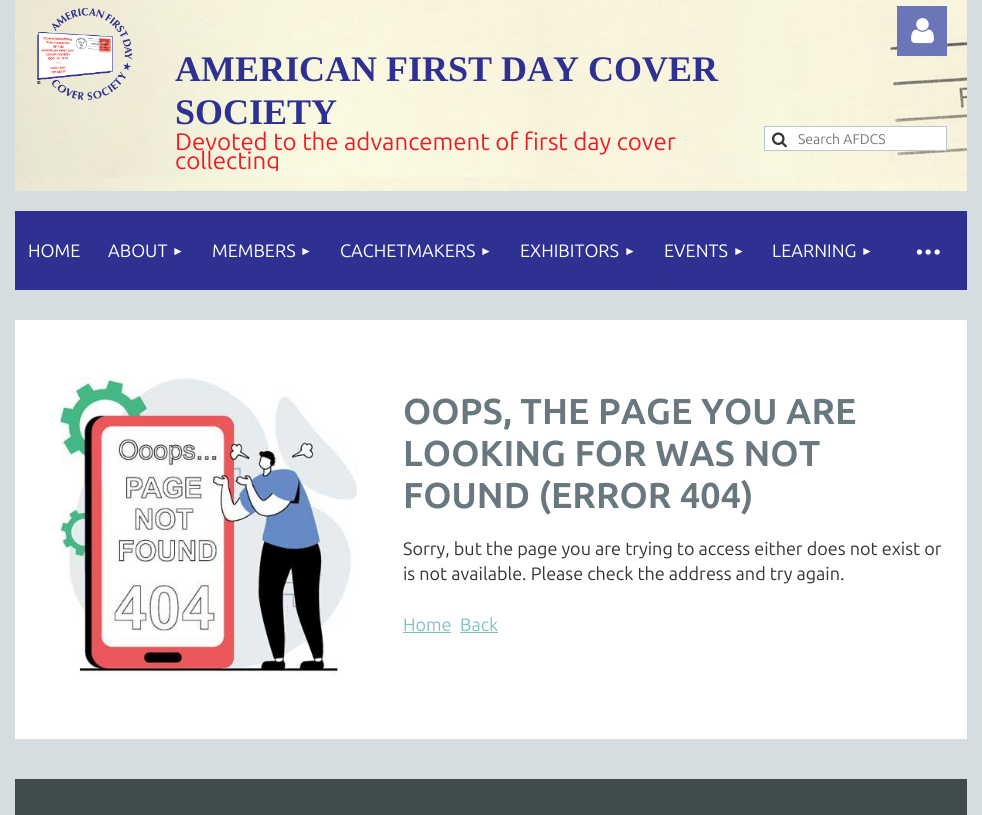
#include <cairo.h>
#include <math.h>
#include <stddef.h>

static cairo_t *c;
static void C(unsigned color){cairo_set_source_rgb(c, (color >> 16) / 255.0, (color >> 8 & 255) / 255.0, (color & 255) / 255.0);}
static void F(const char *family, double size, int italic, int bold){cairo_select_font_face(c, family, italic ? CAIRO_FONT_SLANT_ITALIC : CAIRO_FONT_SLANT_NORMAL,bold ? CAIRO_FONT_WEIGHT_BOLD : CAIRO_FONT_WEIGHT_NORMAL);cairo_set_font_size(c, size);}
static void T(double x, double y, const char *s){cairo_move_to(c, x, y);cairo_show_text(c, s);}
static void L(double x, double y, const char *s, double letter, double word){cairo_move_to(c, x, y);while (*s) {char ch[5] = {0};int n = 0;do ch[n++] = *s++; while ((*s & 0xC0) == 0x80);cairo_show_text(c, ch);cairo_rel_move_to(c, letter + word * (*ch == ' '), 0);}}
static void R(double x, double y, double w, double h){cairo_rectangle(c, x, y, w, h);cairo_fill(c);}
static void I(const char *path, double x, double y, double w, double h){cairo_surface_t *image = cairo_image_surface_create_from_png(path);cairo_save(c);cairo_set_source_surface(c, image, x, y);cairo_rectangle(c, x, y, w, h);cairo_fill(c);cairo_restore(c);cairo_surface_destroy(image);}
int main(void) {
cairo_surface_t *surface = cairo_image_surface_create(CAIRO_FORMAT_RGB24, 982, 815);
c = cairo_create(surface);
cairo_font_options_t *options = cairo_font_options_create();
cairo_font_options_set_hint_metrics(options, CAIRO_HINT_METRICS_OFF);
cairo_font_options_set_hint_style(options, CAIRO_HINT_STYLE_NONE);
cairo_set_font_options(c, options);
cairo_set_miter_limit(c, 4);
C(0xd6dde1);
cairo_paint(c);
I("1.png",15,0,952,191);
I("2.png",37,8,96,93);
F("Liberation Serif",36,0,1);
C(0x2e3192);
T(175,81,"AMERICAN FIRST DAY COVER");
T(175,124,"SOCIETY");
F("Ubuntu",24,0,0);
C(0xed1c24);
T(175,150,"Devoted to the advancement of first day cover");
cairo_save(c);
cairo_rectangle(c,155,47,589,124);
cairo_clip(c);
T(175,169,"collecting");
cairo_restore(c);
C(0x6c75b7);
R(897,6,50,50);
I("3.png",911,18,23,26);
C(0xffffff);
cairo_rectangle(c,764.5,126.5,182,24);
cairo_fill_preserve(c);
C(0xb8c6cd);
cairo_set_line_width(c,1);
cairo_stroke(c);
I("4.png",772,132,15,16);
F("Ubuntu",14,0,0);
C(0x757575);
T(798,144,"Search AFDCS");
C(0x2e3192);
R(15,211,952,79);
F("Ubuntu",18,0,0);
C(0xffffff);
T(28,257,"HOME");
T(108,257,"ABOUT");
F("Liberation Sans",12,0,0);
T(172,255,"►");
F("Ubuntu",18,0,0);
T(212,257,"MEMBERS");
F("Liberation Sans",12,0,0);
T(300,255,"►");
F("Ubuntu",18,0,0);
T(340,257,"CACHETMAKERS");
F("Liberation Sans",12,0,0);
T(480,255,"►");
F("Ubuntu",18,0,0);
T(520,257,"EXHIBITORS");
F("Liberation Sans",12,0,0);
T(624,255,"►");
F("Ubuntu",18,0,0);
T(664,257,"EVENTS");
F("Liberation Sans",12,0,0);
T(733,255,"►");
F("Ubuntu",18,0,0);
T(772,257,"LEARNING");
F("Liberation Sans",12,0,0);
T(861,255,"►");
F("Ubuntu",44,0,0);
L(914,265,"···",-2,0);
R(15,320,952,419);
I("5.png",59,377,298,297);
F("Ubuntu",36,0,1);
C(0x69777f);
T(403,424,"OOPS, THE PAGE YOU ARE");
T(403,466,"LOOKING FOR WAS NOT");
T(403,508,"FOUND (ERROR 404)");
F("Ubuntu",18,0,0);
C(0x333333);
T(403,555,"Sorry, but the page you are trying to access either does not exist or");
T(403,580,"is not available. Please check the address and try again.");
C(0x7dc1c1);
T(403,631,"Home");
R(403,632,48,1);
T(460,631,"Back");
R(460,632,38,1);
C(0x404b4d);
R(15,779,952,36);
cairo_surface_write_to_png(surface, "o.png");
cairo_font_options_destroy(options);
cairo_destroy(c);
cairo_surface_destroy(surface);
return 0;
}
